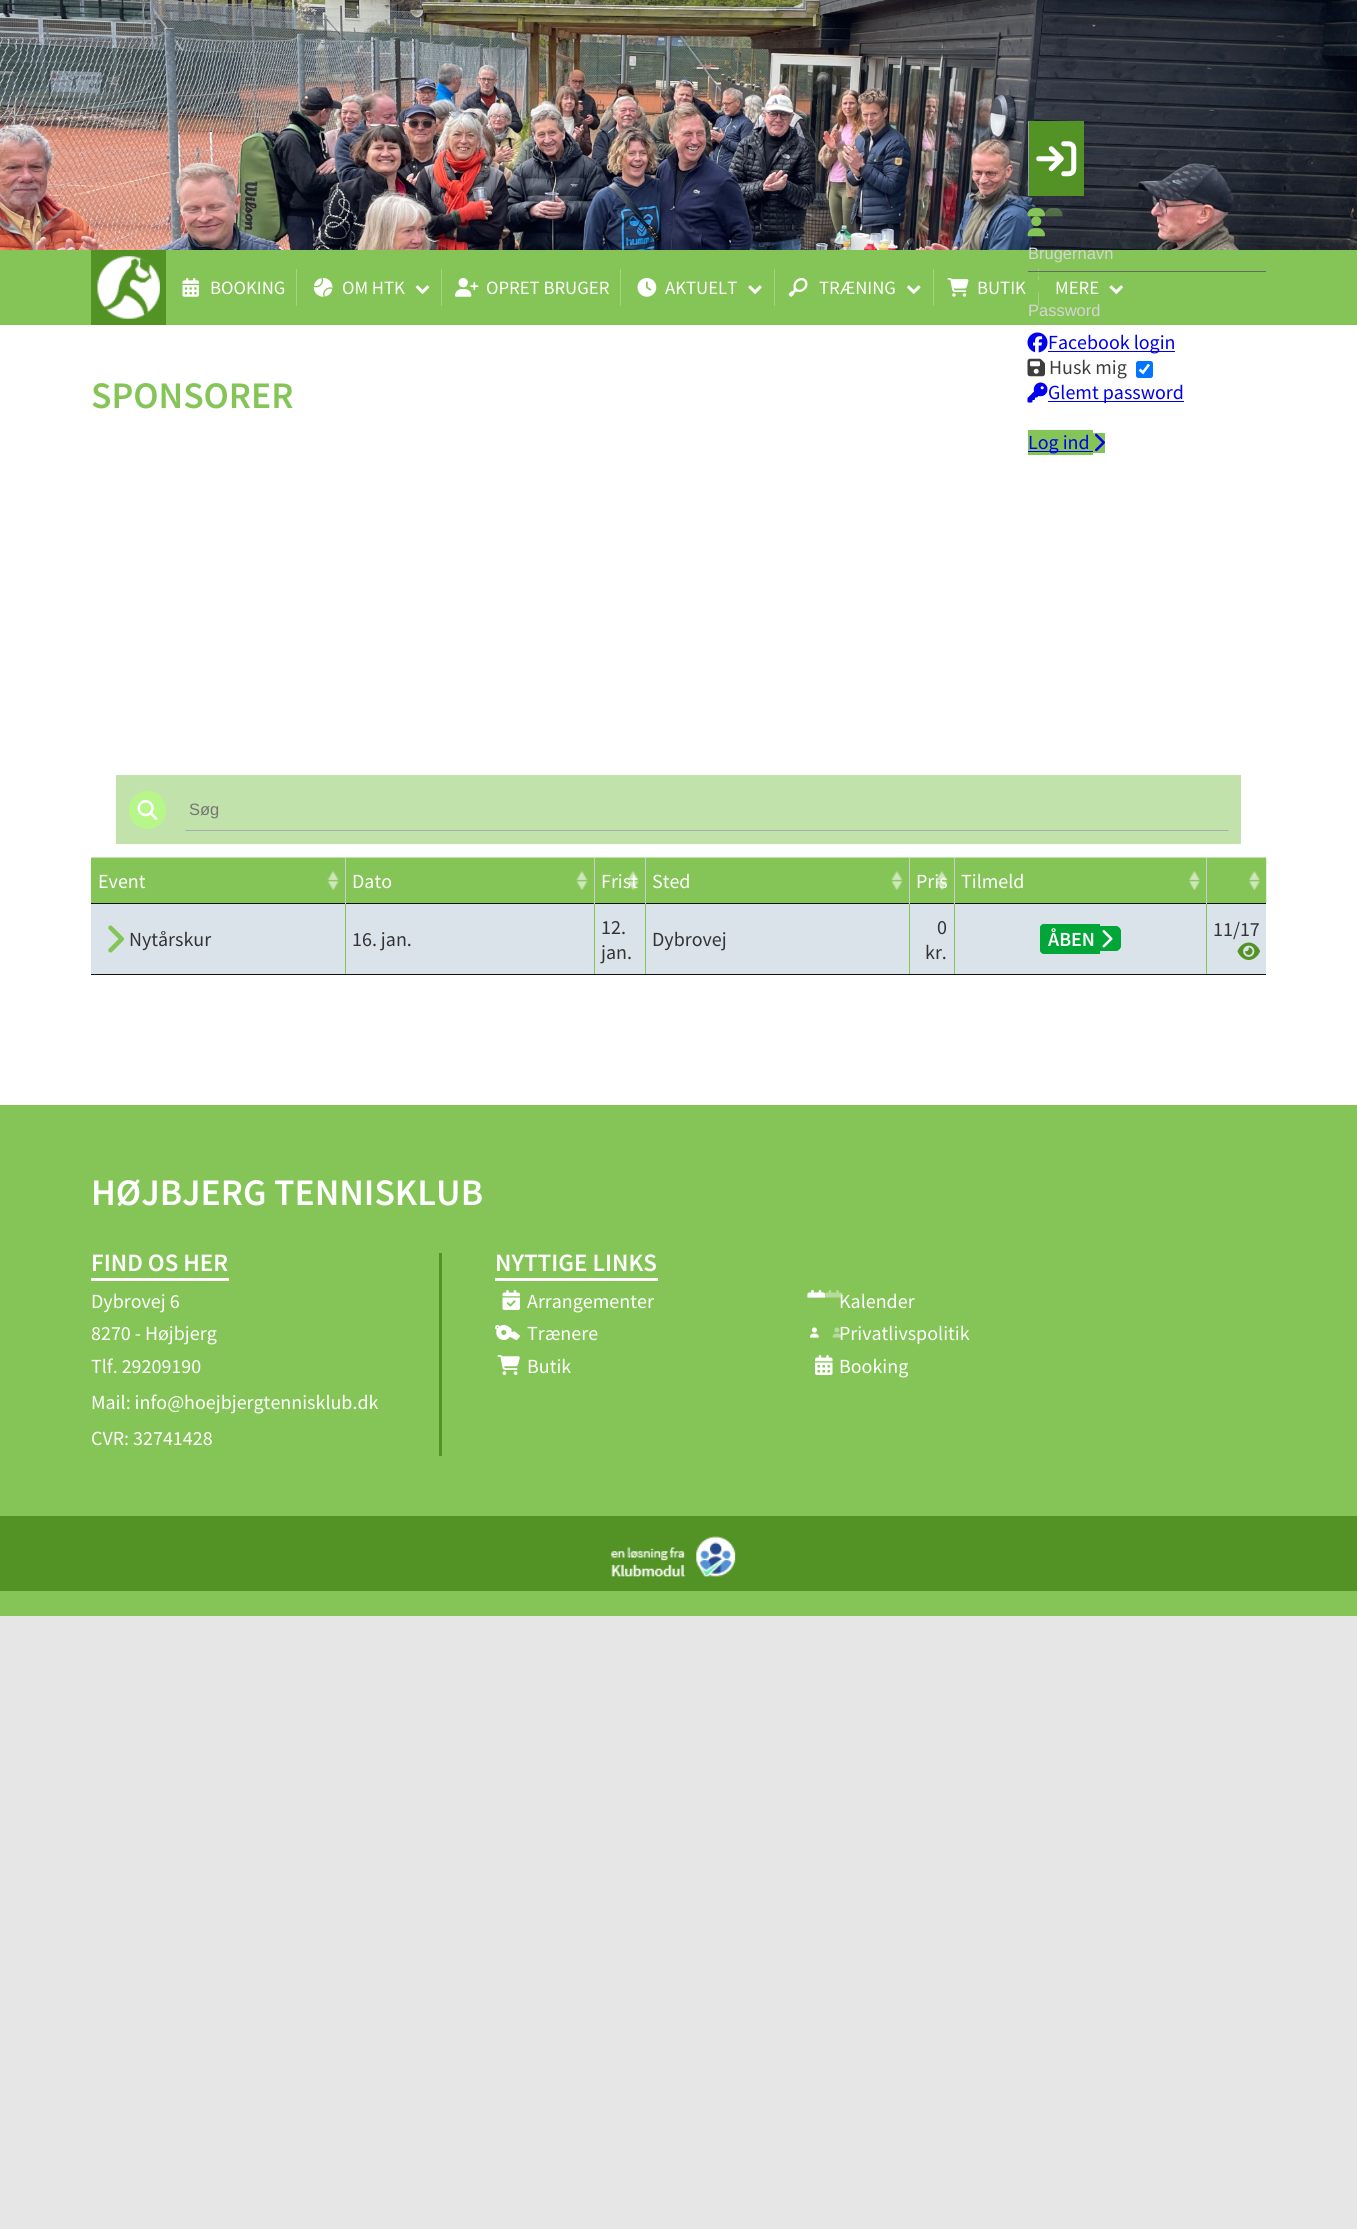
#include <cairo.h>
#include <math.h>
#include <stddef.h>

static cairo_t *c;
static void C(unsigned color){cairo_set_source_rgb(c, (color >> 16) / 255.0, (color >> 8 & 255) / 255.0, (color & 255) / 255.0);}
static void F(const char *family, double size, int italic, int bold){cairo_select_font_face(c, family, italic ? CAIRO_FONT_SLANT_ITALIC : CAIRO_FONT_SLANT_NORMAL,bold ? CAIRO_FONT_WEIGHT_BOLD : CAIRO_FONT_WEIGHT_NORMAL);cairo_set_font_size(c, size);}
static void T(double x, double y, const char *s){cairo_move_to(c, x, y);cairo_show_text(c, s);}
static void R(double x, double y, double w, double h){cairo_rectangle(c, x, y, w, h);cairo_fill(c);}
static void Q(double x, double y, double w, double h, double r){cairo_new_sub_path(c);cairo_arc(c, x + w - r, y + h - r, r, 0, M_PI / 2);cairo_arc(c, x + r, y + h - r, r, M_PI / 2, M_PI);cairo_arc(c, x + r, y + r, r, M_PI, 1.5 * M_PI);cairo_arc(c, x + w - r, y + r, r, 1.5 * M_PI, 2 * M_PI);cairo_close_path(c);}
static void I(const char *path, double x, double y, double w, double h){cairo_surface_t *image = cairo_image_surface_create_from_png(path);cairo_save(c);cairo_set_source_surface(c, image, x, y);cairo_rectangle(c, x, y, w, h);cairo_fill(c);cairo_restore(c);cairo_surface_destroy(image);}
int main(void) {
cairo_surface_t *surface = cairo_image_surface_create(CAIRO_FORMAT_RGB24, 1357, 2229);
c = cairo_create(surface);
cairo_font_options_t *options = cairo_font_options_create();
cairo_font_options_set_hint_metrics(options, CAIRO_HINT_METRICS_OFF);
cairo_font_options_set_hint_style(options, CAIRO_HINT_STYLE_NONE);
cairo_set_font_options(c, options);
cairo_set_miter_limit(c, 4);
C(0xe6e6e6);
cairo_paint(c);
I("1.png",0,0,1357,250);
C(0xffffff);
R(0,325,1357,780);
F("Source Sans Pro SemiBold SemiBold",37.5,0,0);
C(0x85c557);
T(91,408,"SPONSORER");
R(0,250,1357,75);
C(0x539325);
R(91,250,75,75);
I("2.png",97,256,63,63);
I("3.png",182,278,17,19);
F("Source Sans Pro",18.75,0,0);
C(0xffffff);
T(210,294,"BOOKING");
C(0xa4d481);
R(296,269,1,37);
I("4.png",313,278,20,19);
C(0xffffff);
T(342,294,"OM HTK");
I("5.png",415,285,15,9);
C(0xa4d481);
R(441,269,1,37);
I("6.png",455,278,24,19);
C(0xffffff);
T(486,294,"OPRET BRUGER");
C(0xa4d481);
R(620,269,1,37);
I("7.png",637,278,20,19);
C(0xffffff);
T(665,294,"AKTUELT");
I("8.png",748,285,14,9);
C(0xa4d481);
R(774,269,1,37);
I("9.png",788,278,20,19);
C(0xffffff);
T(819,294,"TRÆNING");
I("10.png",907,285,14,9);
C(0xa4d481);
R(933,269,1,37);
I("11.png",947,278,22,19);
C(0xffffff);
T(977,294,"BUTIK");
C(0xa4d481);
R(1038,269,1,37);
C(0xffffff);
T(1055,294,"MERE");
I("12.png",1109,285,14,9);
C(0x539325);
R(1029,121,55,75);
C(0x999999);
R(1028,121,1,75);
I("13.png",1036,141,41,36);
I("16.png",1027,216,18,21);
I("14.png",1027,208,18,9);
I("15.png",1027,208,36,9);
C(0x666666);
R(1028,271,238,1);
F("Liberation Sans",16.5,0,0);
C(0xd5d5d5);
T(1028,259,"Brugernavn");
I("17.png",1038,273,1,20);
T(1028,316,"Password");
I("18.png",1027,332,21,21);
C(0x0000ee);
R(1048,351,127,1);
F("Source Sans Pro",20,0,0);
T(1048,349,"Facebook login");
I("19.png",1027,358,18,19);
C(0x3d3d3d);
T(1049,374,"Husk mig");
C(0x0075ff);
Q(1136,361,17,17,2.5);
cairo_fill(c);
cairo_new_path(c);
cairo_move_to(c,1139.5,369.5);
cairo_line_to(c,1143,372.5);
cairo_line_to(c,1149,364.5);
C(0xffffff);
cairo_set_line_width(c,2.6);
cairo_stroke(c);
I("20.png",1027,382,21,21);
C(0x0000ee);
R(1048,401,136,1);
T(1048,399,"Glemt password");
C(0x85c557);
R(1028,430,65,25);
R(1093,433,12,20);
C(0x0000ee);
R(1028,451,65,1);
T(1028,449,"Log ind");
I("21.png",1095,433,10,19);
C(0xc2e2ab);
R(116,775,1125,69);
C(0xb7f789);
Q(129,791,37,38,18.5);
cairo_fill(c);
I("22.png",137,800,21,20);
C(0xaaaaaa);
cairo_new_path(c);
cairo_move_to(c,1229,831);
cairo_line_to(c,185,831);
cairo_line_to(c,186,830);
cairo_line_to(c,1228,830);
cairo_close_path(c);
cairo_fill(c);
F("Liberation Sans",16.5,0,0);
C(0x757575);
T(189,815,"Søg");
C(0x111111);
R(91,974,1175,1);
C(0x85c557);
R(91,858,863,45);
I("23.png",91,857,254,34);
C(0x111111);
R(91,903,503,1);
F("Source Sans Pro",20,0,0);
C(0xffffff);
T(98,888,"Event");
I("24.png",345,857,249,33);
C(0xcccccc);
R(345,858,1,46);
C(0xffffff);
T(352,888,"Dato");
I("25.png",593,857,52,47);
C(0x111111);
R(594,903,315,1);
C(0xcccccc);
R(594,858,1,46);
C(0xffffff);
T(601,888,"Frist");
I("26.png",645,857,264,33);
C(0xcccccc);
R(645,858,1,46);
C(0xffffff);
T(652,888,"Sted");
I("27.png",908,857,46,47);
C(0x111111);
R(909,903,45,1);
C(0xcccccc);
R(909,858,1,46);
C(0xffffff);
T(916,888,"Pris");
I("28.png",953,857,254,47);
C(0x111111);
R(954,903,252,1);
C(0xcccccc);
R(954,858,1,46);
C(0xffffff);
T(961,888,"Tilmeld");
I("29.png",1206,857,61,47);
C(0x111111);
R(1206,903,60,1);
C(0xcccccc);
R(1206,858,1,46);
C(0xdae3e9);
R(91,904,1175,70);
I("30.png",108,925,16,28);
C(0x333333);
T(129,946,"Nytårskur");
C(0x85c557);
R(345,904,1,70);
C(0x333333);
T(352,946,"16. jan.");
C(0x85c557);
R(594,904,1,70);
C(0x333333);
T(601,934,"12.");
T(601,959,"jan.");
C(0x85c557);
R(645,904,1,70);
C(0x333333);
T(652,946,"Dybrovej");
C(0x85c557);
R(909,904,1,70);
C(0x333333);
T(937,934,"0");
T(925,959,"kr.");
C(0x85c557);
R(954,904,1,70);
C(0x00a637);
cairo_new_path(c);
cairo_move_to(c,1044.5,924);
cairo_line_to(c,1049,924);
cairo_line_to(c,1049,954);
cairo_line_to(c,1044.5,954);
cairo_curve_to(c,1042,954,1040,952,1040,949.5);
cairo_line_to(c,1040,928.5);
cairo_curve_to(c,1040,926,1042,924,1044.5,924);
cairo_close_path(c);
cairo_fill(c);
cairo_set_fill_rule(c,CAIRO_FILL_RULE_EVEN_ODD);
cairo_new_path(c);
cairo_move_to(c,1044.5,924);
cairo_line_to(c,1049,924);
cairo_line_to(c,1049,954);
cairo_line_to(c,1044.5,954);
cairo_curve_to(c,1042,954,1040,952,1040,949.5);
cairo_line_to(c,1040,928);
cairo_curve_to(c,1040,925.5,1042,924,1044.5,924);
cairo_close_path(c);
cairo_move_to(c,1044.5,926);
cairo_line_to(c,1049,926);
cairo_line_to(c,1049,951);
cairo_line_to(c,1044.5,951);
cairo_curve_to(c,1043.5,951,1042.5,950.5,1042.5,949.5);
cairo_line_to(c,1042.5,928);
cairo_curve_to(c,1042.5,927,1043.5,926,1044.5,926);
cairo_close_path(c);
cairo_fill(c);
R(1049,924,51,30);
cairo_new_path(c);
cairo_move_to(c,1100,926);
cairo_line_to(c,1115,926);
cairo_curve_to(c,1118.5,926,1121,928.5,1121,932);
cairo_line_to(c,1121,945);
cairo_curve_to(c,1121,948.5,1118.5,951,1115,951);
cairo_line_to(c,1100,951);
cairo_close_path(c);
cairo_fill(c);
cairo_new_path(c);
cairo_move_to(c,1100,926);
cairo_line_to(c,1115,926);
cairo_curve_to(c,1118.5,926,1121,929,1121,932.5);
cairo_line_to(c,1121,945);
cairo_curve_to(c,1121,948.5,1118.5,951,1115,951);
cairo_line_to(c,1100,951);
cairo_close_path(c);
cairo_move_to(c,1100,929);
cairo_line_to(c,1115,929);
cairo_curve_to(c,1117,929,1119,930.5,1119,932.5);
cairo_line_to(c,1119,945);
cairo_curve_to(c,1119,947,1117,949,1115,949);
cairo_line_to(c,1100,949);
cairo_close_path(c);
cairo_fill(c);
F("Source Sans Pro SemiBold SemiBold",20,0,0);
C(0xffffff);
T(1048,946,"ÅBEN");
I("31.png",1102,930,11,18);
C(0x85c557);
R(1206,904,1,70);
F("Source Sans Pro",20,0,0);
C(0x333333);
T(1213,936,"11/17");
I("32.png",1237,942,23,18);
C(0x85c557);
R(0,1105,1357,511);
F("Source Sans Pro SemiBold SemiBold",37.5,0,0);
C(0xffffff);
T(91,1205,"HØJBJERG TENNISKLUB");
F("Source Sans Pro SemiBold SemiBold",25,0,0);
T(91,1271,"FIND OS HER");
R(91,1278,138,3);
F("Source Sans Pro",20,0,0);
T(91,1308,"Dybrovej 6");
T(91,1340,"8270 - Højbjerg");
T(91,1373,"Tlf. 29209190");
T(91,1409,"Mail: info@hoejbjergtennisklub.dk");
T(91,1445,"CVR: 32741428");
C(0x539325);
R(439,1253,3,203);
F("Source Sans Pro SemiBold SemiBold",25,0,0);
C(0xffffff);
T(495,1271,"NYTTIGE LINKS");
R(495,1278,163,3);
I("33.png",502,1290,18,20);
F("Source Sans Pro",20,0,0);
T(527,1308,"Arrangementer");
I("34.png",807,1290,18,8);
I("35.png",807,1290,36,8);
T(839,1308,"Kalender");
I("36.png",495,1325,25,15);
T(527,1340,"Trænere");
I("37.png",810,1327,9,11);
I("38.png",810,1327,32,11);
T(839,1340,"Privatlivspolitik");
I("39.png",497,1355,23,20);
T(527,1373,"Butik");
I("40.png",815,1355,18,20);
T(839,1373,"Booking");
C(0x539325);
R(0,1516,1357,75);
I("41.png",611,1536,125,41);
cairo_surface_write_to_png(surface, "o.png");
cairo_font_options_destroy(options);
cairo_destroy(c);
cairo_surface_destroy(surface);
return 0;
}
